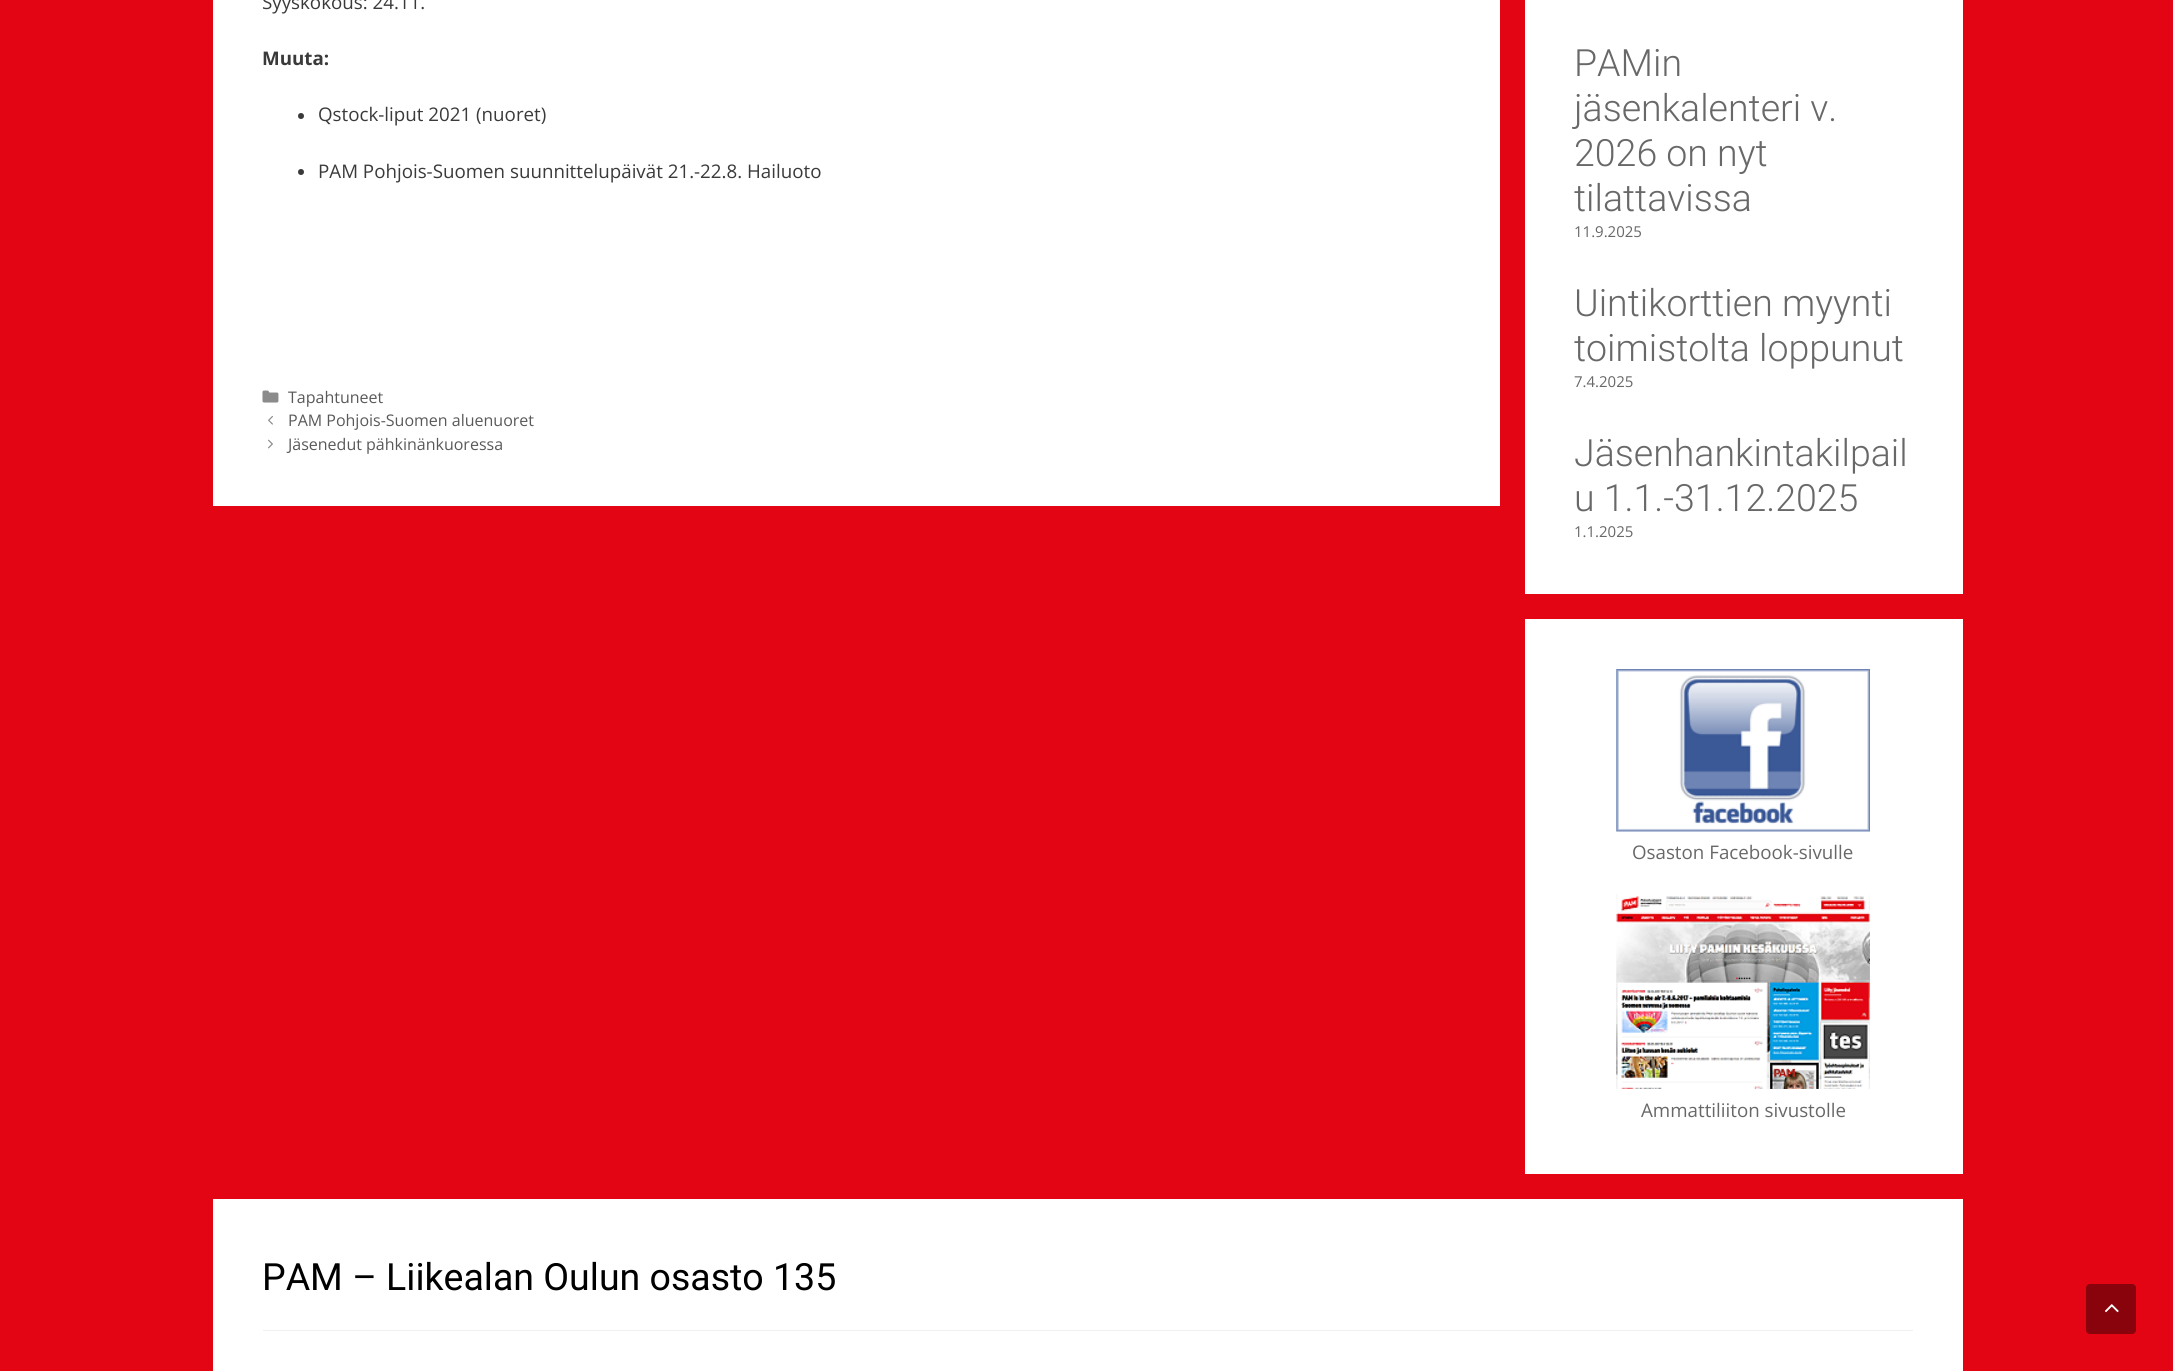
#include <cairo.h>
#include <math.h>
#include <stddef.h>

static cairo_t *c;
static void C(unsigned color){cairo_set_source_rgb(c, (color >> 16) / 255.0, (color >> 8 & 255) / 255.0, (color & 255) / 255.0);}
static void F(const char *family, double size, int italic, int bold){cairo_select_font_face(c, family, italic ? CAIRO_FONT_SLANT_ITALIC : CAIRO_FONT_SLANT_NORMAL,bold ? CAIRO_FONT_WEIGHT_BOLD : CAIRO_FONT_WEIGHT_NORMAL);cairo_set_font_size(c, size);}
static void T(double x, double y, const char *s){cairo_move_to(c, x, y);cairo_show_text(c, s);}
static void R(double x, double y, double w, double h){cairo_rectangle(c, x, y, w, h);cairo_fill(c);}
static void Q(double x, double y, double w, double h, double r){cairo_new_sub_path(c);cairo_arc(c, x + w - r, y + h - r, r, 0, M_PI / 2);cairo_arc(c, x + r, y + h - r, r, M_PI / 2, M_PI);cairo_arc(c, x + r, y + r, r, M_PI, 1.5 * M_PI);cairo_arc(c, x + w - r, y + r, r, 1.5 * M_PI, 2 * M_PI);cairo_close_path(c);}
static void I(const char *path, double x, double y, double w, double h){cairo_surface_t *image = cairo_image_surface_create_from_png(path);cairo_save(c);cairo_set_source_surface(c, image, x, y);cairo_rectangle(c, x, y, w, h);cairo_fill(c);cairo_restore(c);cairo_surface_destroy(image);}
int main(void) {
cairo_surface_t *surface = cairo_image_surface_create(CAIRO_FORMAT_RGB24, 2173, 1371);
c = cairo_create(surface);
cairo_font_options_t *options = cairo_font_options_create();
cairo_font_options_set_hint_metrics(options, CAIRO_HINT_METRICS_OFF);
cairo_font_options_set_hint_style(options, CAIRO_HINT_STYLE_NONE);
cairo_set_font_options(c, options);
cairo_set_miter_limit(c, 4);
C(0xe30513);
cairo_paint(c);
C(0xffffff);
R(213,0,1287,506);
F("Open Sans",18.75,0,0);
C(0x3a3a3a);
T(262,9,"Syyskokous: 24.11.");
F("Open Sans",18.75,0,1);
T(262,65,"Muuta:");
cairo_new_path(c);
cairo_arc(c,301,116,3,0,2 * M_PI);
cairo_fill(c);
F("Open Sans",18.75,0,0);
T(318,121,"Qstock-liput 2021 (nuoret)");
cairo_new_path(c);
cairo_arc(c,301,172,3,0,2 * M_PI);
cairo_fill(c);
T(318,178,"PAM Pohjois-Suomen suunnittelupäivät 21.-22.8. Hailuoto");
I("1.png",262,390,17,13);
F("Open Sans",16,0,0);
C(0x595959);
T(288,403,"Tapahtuneet");
I("2.png",268,415,5,10);
T(288,426,"PAM Pohjois-Suomen aluenuoret");
I("3.png",268,439,5,10);
T(288,450,"Jäsenedut pähkinänkuoressa");
C(0xffffff);
R(1525,0,438,594);
F("Roboto Light",37.5,0,0);
C(0x686868);
T(1574,76,"PAMin");
T(1574,121,"jäsenkalenteri v.");
T(1574,166,"2026 on nyt");
T(1574,211,"tilattavissa");
F("Open Sans",15,0,0);
T(1574,237,"11.9.2025");
F("Roboto Light",37.5,0,0);
T(1574,316,"Uintikorttien myynti");
T(1574,361,"toimistolta loppunut");
F("Open Sans",15,0,0);
T(1574,387,"7.4.2025");
F("Roboto Light",37.5,0,0);
T(1574,466,"Jäsenhankintakilpail");
T(1574,511,"u 1.1.-31.12.2025");
F("Open Sans",15,0,0);
T(1574,537,"1.1.2025");
C(0xffffff);
R(1525,619,438,555);
I("4.png",1616,669,254,163);
F("Open Sans",18.75,0,0);
C(0x686868);
T(1632,859,"Osaston Facebook-sivulle");
I("5.png",1616,894,254,195);
T(1641,1117,"Ammattiliiton sivustolle");
C(0xffffff);
R(213,1199,1750,172);
C(0xefefef);
R(263,1330,1650,1);
F("Roboto",37.5,0,0);
C(0x000000);
T(262,1290,"PAM – Liikealan Oulun osasto 135");
C(0x88030b);
Q(2086,1284,50,50,4);
cairo_fill(c);
I("6.png",2105,1304,14,9);
cairo_surface_write_to_png(surface, "o.png");
cairo_font_options_destroy(options);
cairo_destroy(c);
cairo_surface_destroy(surface);
return 0;
}
